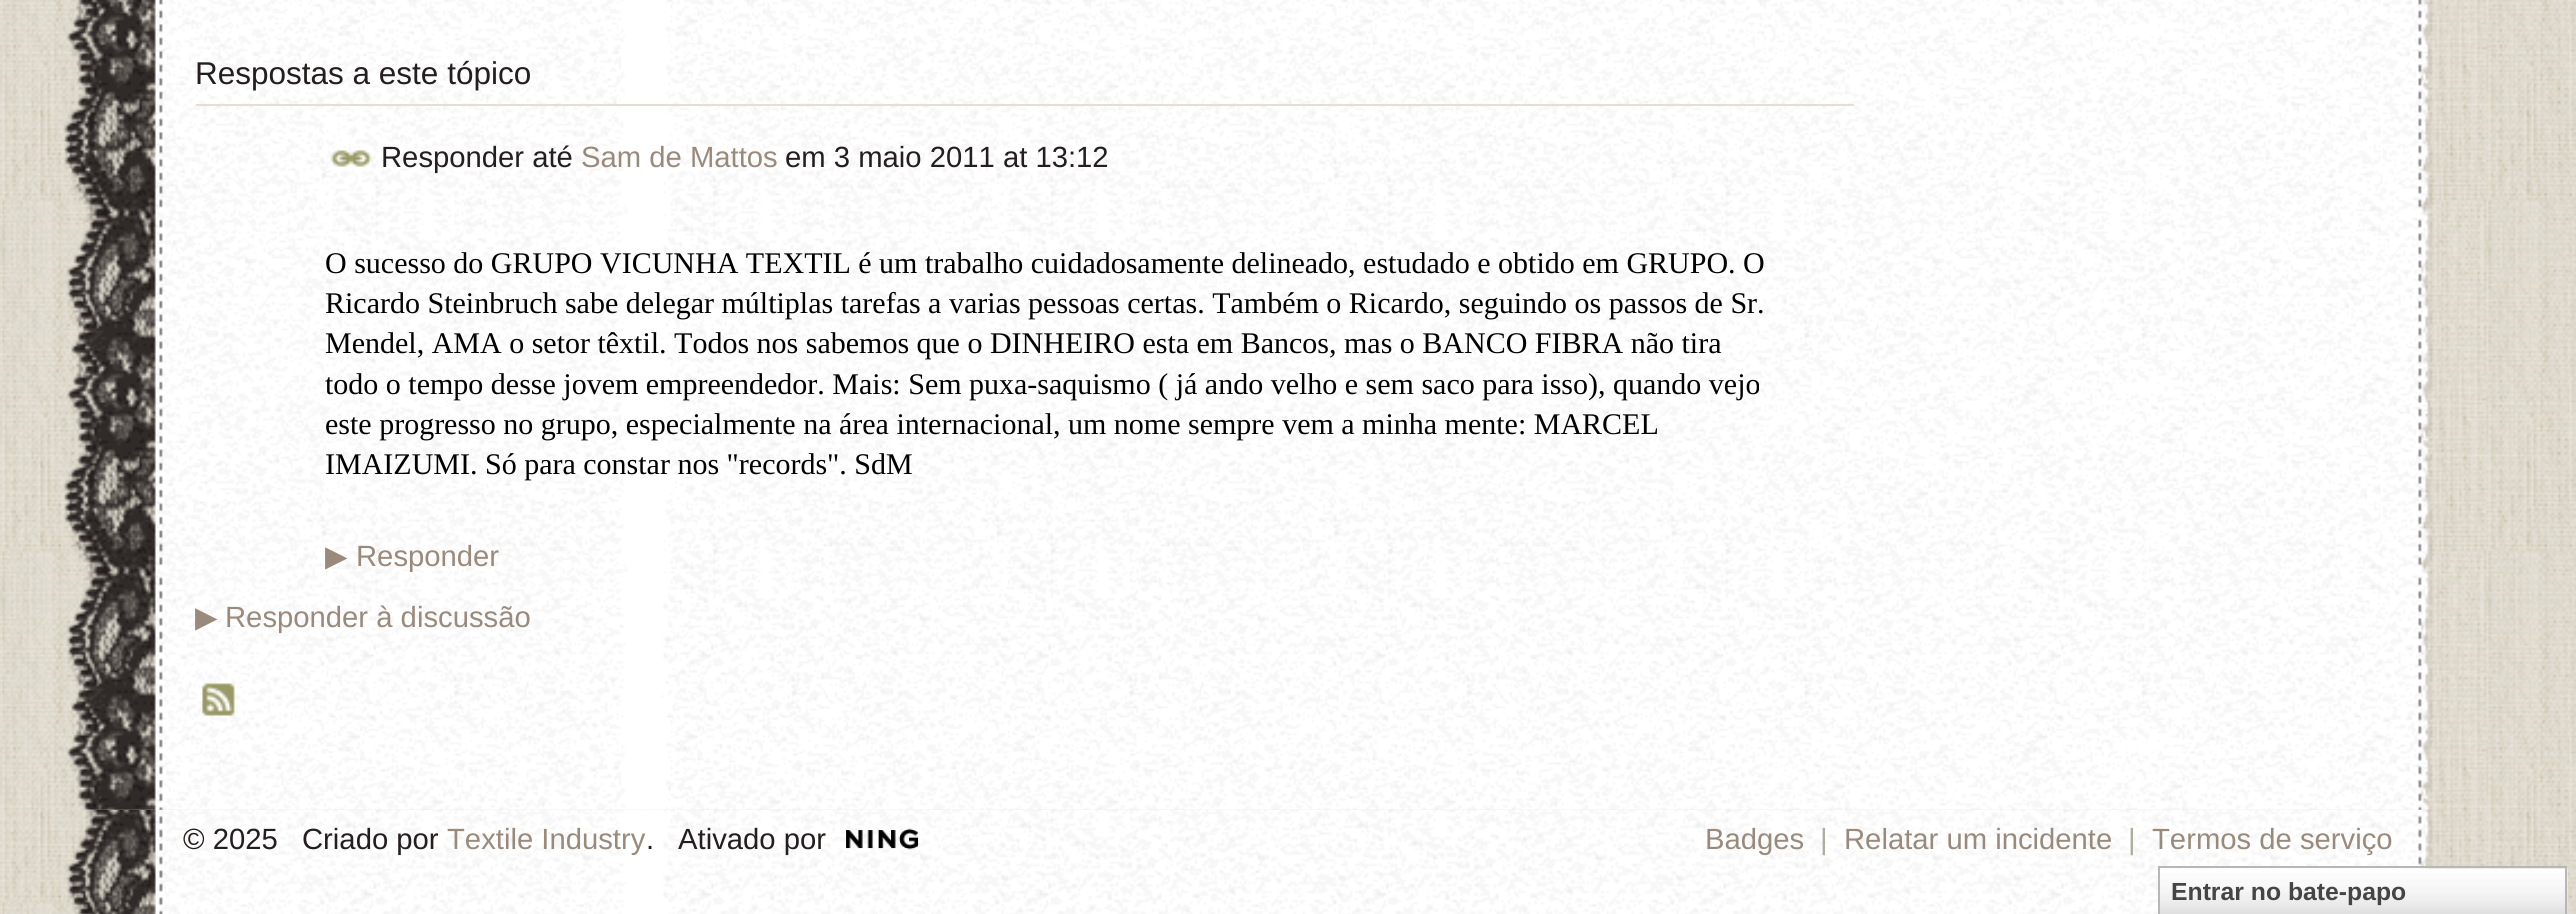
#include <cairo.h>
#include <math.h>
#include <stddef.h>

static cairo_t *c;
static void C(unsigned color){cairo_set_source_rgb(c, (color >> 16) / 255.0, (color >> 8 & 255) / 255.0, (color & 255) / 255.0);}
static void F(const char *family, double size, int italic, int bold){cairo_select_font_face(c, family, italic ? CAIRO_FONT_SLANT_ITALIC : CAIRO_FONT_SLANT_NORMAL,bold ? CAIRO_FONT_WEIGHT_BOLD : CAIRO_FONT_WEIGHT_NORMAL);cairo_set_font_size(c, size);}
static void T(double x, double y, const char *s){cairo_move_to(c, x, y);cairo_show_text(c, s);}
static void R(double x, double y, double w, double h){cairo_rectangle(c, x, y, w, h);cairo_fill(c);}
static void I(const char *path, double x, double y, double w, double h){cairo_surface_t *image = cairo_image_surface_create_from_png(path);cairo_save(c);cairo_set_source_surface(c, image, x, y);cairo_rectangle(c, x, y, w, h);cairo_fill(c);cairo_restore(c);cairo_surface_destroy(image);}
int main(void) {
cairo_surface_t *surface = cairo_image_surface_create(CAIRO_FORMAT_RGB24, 2576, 914);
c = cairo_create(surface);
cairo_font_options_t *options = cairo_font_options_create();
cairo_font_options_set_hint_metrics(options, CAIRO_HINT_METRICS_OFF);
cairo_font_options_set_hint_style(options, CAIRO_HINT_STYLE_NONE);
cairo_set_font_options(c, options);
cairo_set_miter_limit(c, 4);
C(0xffffff);
cairo_paint(c);
I("1.png",0,0,2576,914);
I("5.png",67,809,2366,105);
I("2.png",63,0,2370,810);
F("Liberation Sans",31.5,0,0);
C(0x241e1e);
T(195,84,"Respostas a este tópico");
C(0xe4ded3);
R(196,104,1658,2);
I("3.png",330,150,42,17);
F("Liberation Sans",29.25,0,0);
C(0x241e1e);
T(381,167,"Responder até");
C(0x998a7c);
T(581,167,"Sam de Mattos");
C(0x241e1e);
T(785,167,"em 3 maio 2011 at 13:12");
F("Liberation Serif",30,0,0);
C(0x000000);
T(325,273,"O sucesso do GRUPO VICUNHA TEXTIL é um trabalho cuidadosamente delineado, estudado e obtido em GRUPO. O");
T(325,313,"Ricardo Steinbruch sabe delegar múltiplas tarefas a varias pessoas certas. Também o Ricardo, seguindo os passos de Sr.");
T(325,353,"Mendel, AMA o setor têxtil. Todos nos sabemos que o DINHEIRO esta em Bancos, mas o BANCO FIBRA não tira");
T(325,394,"todo o tempo desse jovem empreendedor. Mais: Sem puxa-saquismo ( já ando velho e sem saco para isso), quando vejo");
T(325,434,"este progresso no grupo, especialmente na área internacional, um nome sempre vem a minha mente: MARCEL");
T(325,474,"IMAIZUMI. Só para constar nos \"records\". SdM");
F("DejaVu Sans",29.25,0,0);
C(0x998a7c);
T(325,566,"▶");
F("Liberation Sans",29.25,0,0);
T(356,566,"Responder");
F("DejaVu Sans",29.25,0,0);
T(195,627,"▶");
F("Liberation Sans",29.25,0,0);
T(225,627,"Responder à discussão");
I("4.png",202,683,33,33);
C(0x241e1e);
T(183,849,"© 2025");
T(302,849,"Criado por");
C(0x998a7c);
T(447,849,"Textile Industry");
C(0x241e1e);
T(646,849,".");
T(678,849,"Ativado por");
I("6.png",846,828,73,22);
C(0x998a7c);
T(1705,849,"Badges");
C(0xaaaf9f);
T(1820,849,"|");
C(0x998a7c);
T(1844,849,"Relatar um incidente");
C(0xaaaf9f);
T(2128,849,"|");
C(0x998a7c);
T(2152,849,"Termos de serviço");
I("7.png",2160,868,408,46);
cairo_rectangle(c,2159,867,407,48);
C(0xb7b7b7);
cairo_stroke(c);
F("Liberation Sans",24.75,0,1);
C(0x454545);
T(2171,900,"Entrar no bate-papo");
cairo_surface_write_to_png(surface, "o.png");
cairo_font_options_destroy(options);
cairo_destroy(c);
cairo_surface_destroy(surface);
return 0;
}
